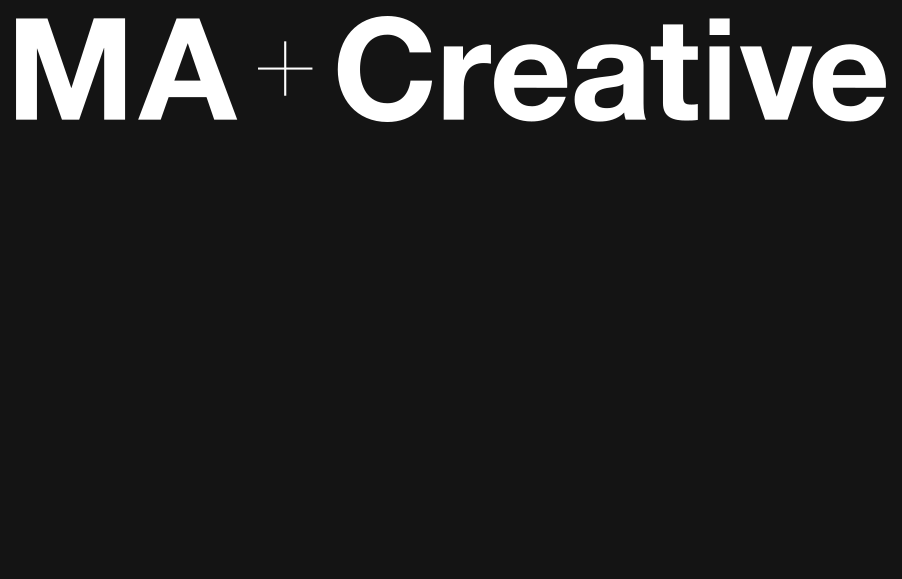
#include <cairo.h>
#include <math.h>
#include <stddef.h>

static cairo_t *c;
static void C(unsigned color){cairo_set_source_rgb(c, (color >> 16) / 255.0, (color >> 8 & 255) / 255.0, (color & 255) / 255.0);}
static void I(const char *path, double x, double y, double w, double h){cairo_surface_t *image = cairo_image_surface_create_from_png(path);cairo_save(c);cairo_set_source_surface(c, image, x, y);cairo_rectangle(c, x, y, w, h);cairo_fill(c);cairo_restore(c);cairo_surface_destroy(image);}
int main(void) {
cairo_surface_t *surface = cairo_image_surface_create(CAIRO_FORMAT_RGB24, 902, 579);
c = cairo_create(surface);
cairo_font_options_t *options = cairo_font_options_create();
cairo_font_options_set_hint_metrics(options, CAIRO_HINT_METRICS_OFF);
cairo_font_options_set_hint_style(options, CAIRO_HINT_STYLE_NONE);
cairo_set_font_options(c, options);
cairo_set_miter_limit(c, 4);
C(0x141414);
cairo_paint(c);
I("1.png",16,16,870,106);
cairo_surface_write_to_png(surface, "o.png");
cairo_font_options_destroy(options);
cairo_destroy(c);
cairo_surface_destroy(surface);
return 0;
}
